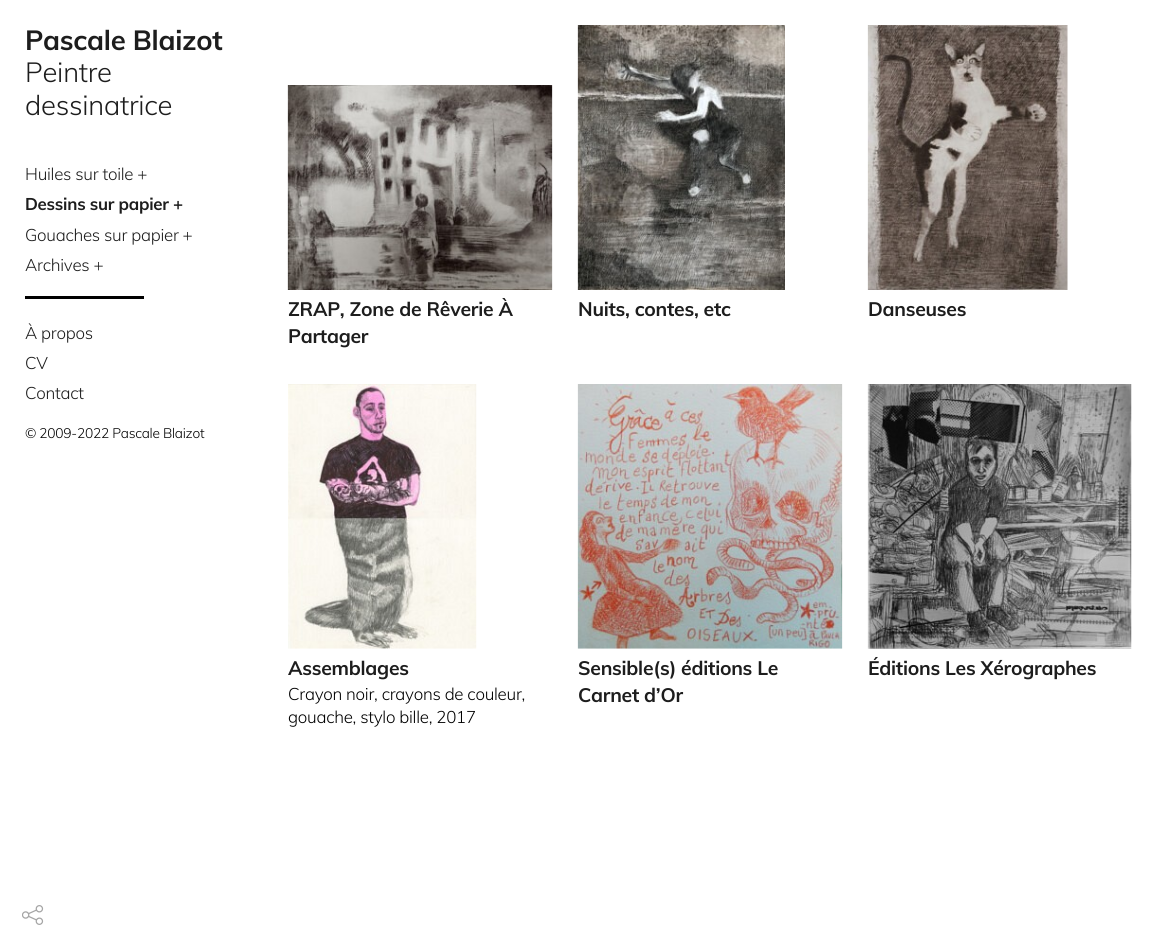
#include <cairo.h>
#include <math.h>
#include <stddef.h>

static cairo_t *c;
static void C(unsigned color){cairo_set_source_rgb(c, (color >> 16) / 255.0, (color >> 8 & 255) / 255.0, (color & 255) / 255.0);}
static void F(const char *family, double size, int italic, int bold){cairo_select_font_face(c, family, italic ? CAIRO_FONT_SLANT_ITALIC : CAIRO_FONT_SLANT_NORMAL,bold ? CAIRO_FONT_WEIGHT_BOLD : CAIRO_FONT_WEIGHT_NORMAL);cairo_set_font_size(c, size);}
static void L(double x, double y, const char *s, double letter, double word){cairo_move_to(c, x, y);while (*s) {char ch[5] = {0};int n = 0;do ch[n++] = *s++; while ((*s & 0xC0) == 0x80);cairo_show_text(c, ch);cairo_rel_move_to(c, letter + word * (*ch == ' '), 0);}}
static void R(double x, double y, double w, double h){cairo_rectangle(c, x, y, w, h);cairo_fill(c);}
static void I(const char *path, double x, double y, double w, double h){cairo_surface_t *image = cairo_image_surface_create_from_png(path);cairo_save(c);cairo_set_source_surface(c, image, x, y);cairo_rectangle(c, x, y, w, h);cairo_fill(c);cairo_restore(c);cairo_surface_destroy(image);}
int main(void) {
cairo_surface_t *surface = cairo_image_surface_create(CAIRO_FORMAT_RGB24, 1161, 947);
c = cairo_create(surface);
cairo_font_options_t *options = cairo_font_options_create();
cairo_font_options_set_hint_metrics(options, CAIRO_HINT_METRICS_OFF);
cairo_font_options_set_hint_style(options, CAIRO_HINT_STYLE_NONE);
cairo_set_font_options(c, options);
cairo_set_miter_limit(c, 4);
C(0xffffff);
cairo_paint(c);
F("Muli",27.5,0,1);
C(0x1d1d1d);
L(25,50,"Pascale Blaizot",-.25,0);
F("Muli Light",27.5,0,0);
L(25,82,"Peintre",-.25,0);
L(25,115,"dessinatrice",-.25,0);
F("Muli Light",16.9,0,0);
L(25,180,"Huiles sur toile +",-.25,0);
F("Muli",16.9,0,1);
L(25,210,"Dessins sur papier +",-.25,0);
F("Muli Light",16.9,0,0);
L(25,241,"Gouaches sur papier +",-.25,0);
L(25,271,"Archives +",-.25,0);
C(0x000000);
R(25,296,119,3);
C(0x1d1d1d);
L(25,339,"À propos",-.25,0);
L(25,369,"CV",-.25,0);
L(25,399,"Contact",-.25,0);
F("Muli Light",13.75,0,0);
C(0x000000);
L(25,438,"© 2009-2022 Pascale Blaizot",-.25,0);
I("1.png",287,85,266,205);
F("Muli",19.4,0,1);
C(0x1d1d1d);
L(288,316,"ZRAP, Zone de Rêverie À",-.25,0);
L(288,343,"Partager",-.25,0);
I("2.png",577,25,208,265);
L(578,316,"Nuits, contes, etc",-.25,0);
I("3.png",867,25,201,265);
L(868,316,"Danseuses",-.25,0);
I("4.png",288,384,189,265);
L(288,675,"Assemblages",-.25,0);
F("Muli Light",16.9,0,0);
C(0x000000);
L(288,700,"Crayon noir, crayons de couleur,",-.25,0);
L(288,723,"gouache, stylo bille, 2017",-.25,0);
I("5.png",577,384,266,265);
F("Muli",19.4,0,1);
C(0x1d1d1d);
L(578,675,"Sensible(s) éditions Le",-.25,0);
L(578,702,"Carnet d’Or",-.25,0);
I("6.png",867,384,265,265);
L(868,675,"Éditions Les Xérographes",-.25,0);
I("7.png",22,905,22,20);
cairo_surface_write_to_png(surface, "o.png");
cairo_font_options_destroy(options);
cairo_destroy(c);
cairo_surface_destroy(surface);
return 0;
}
